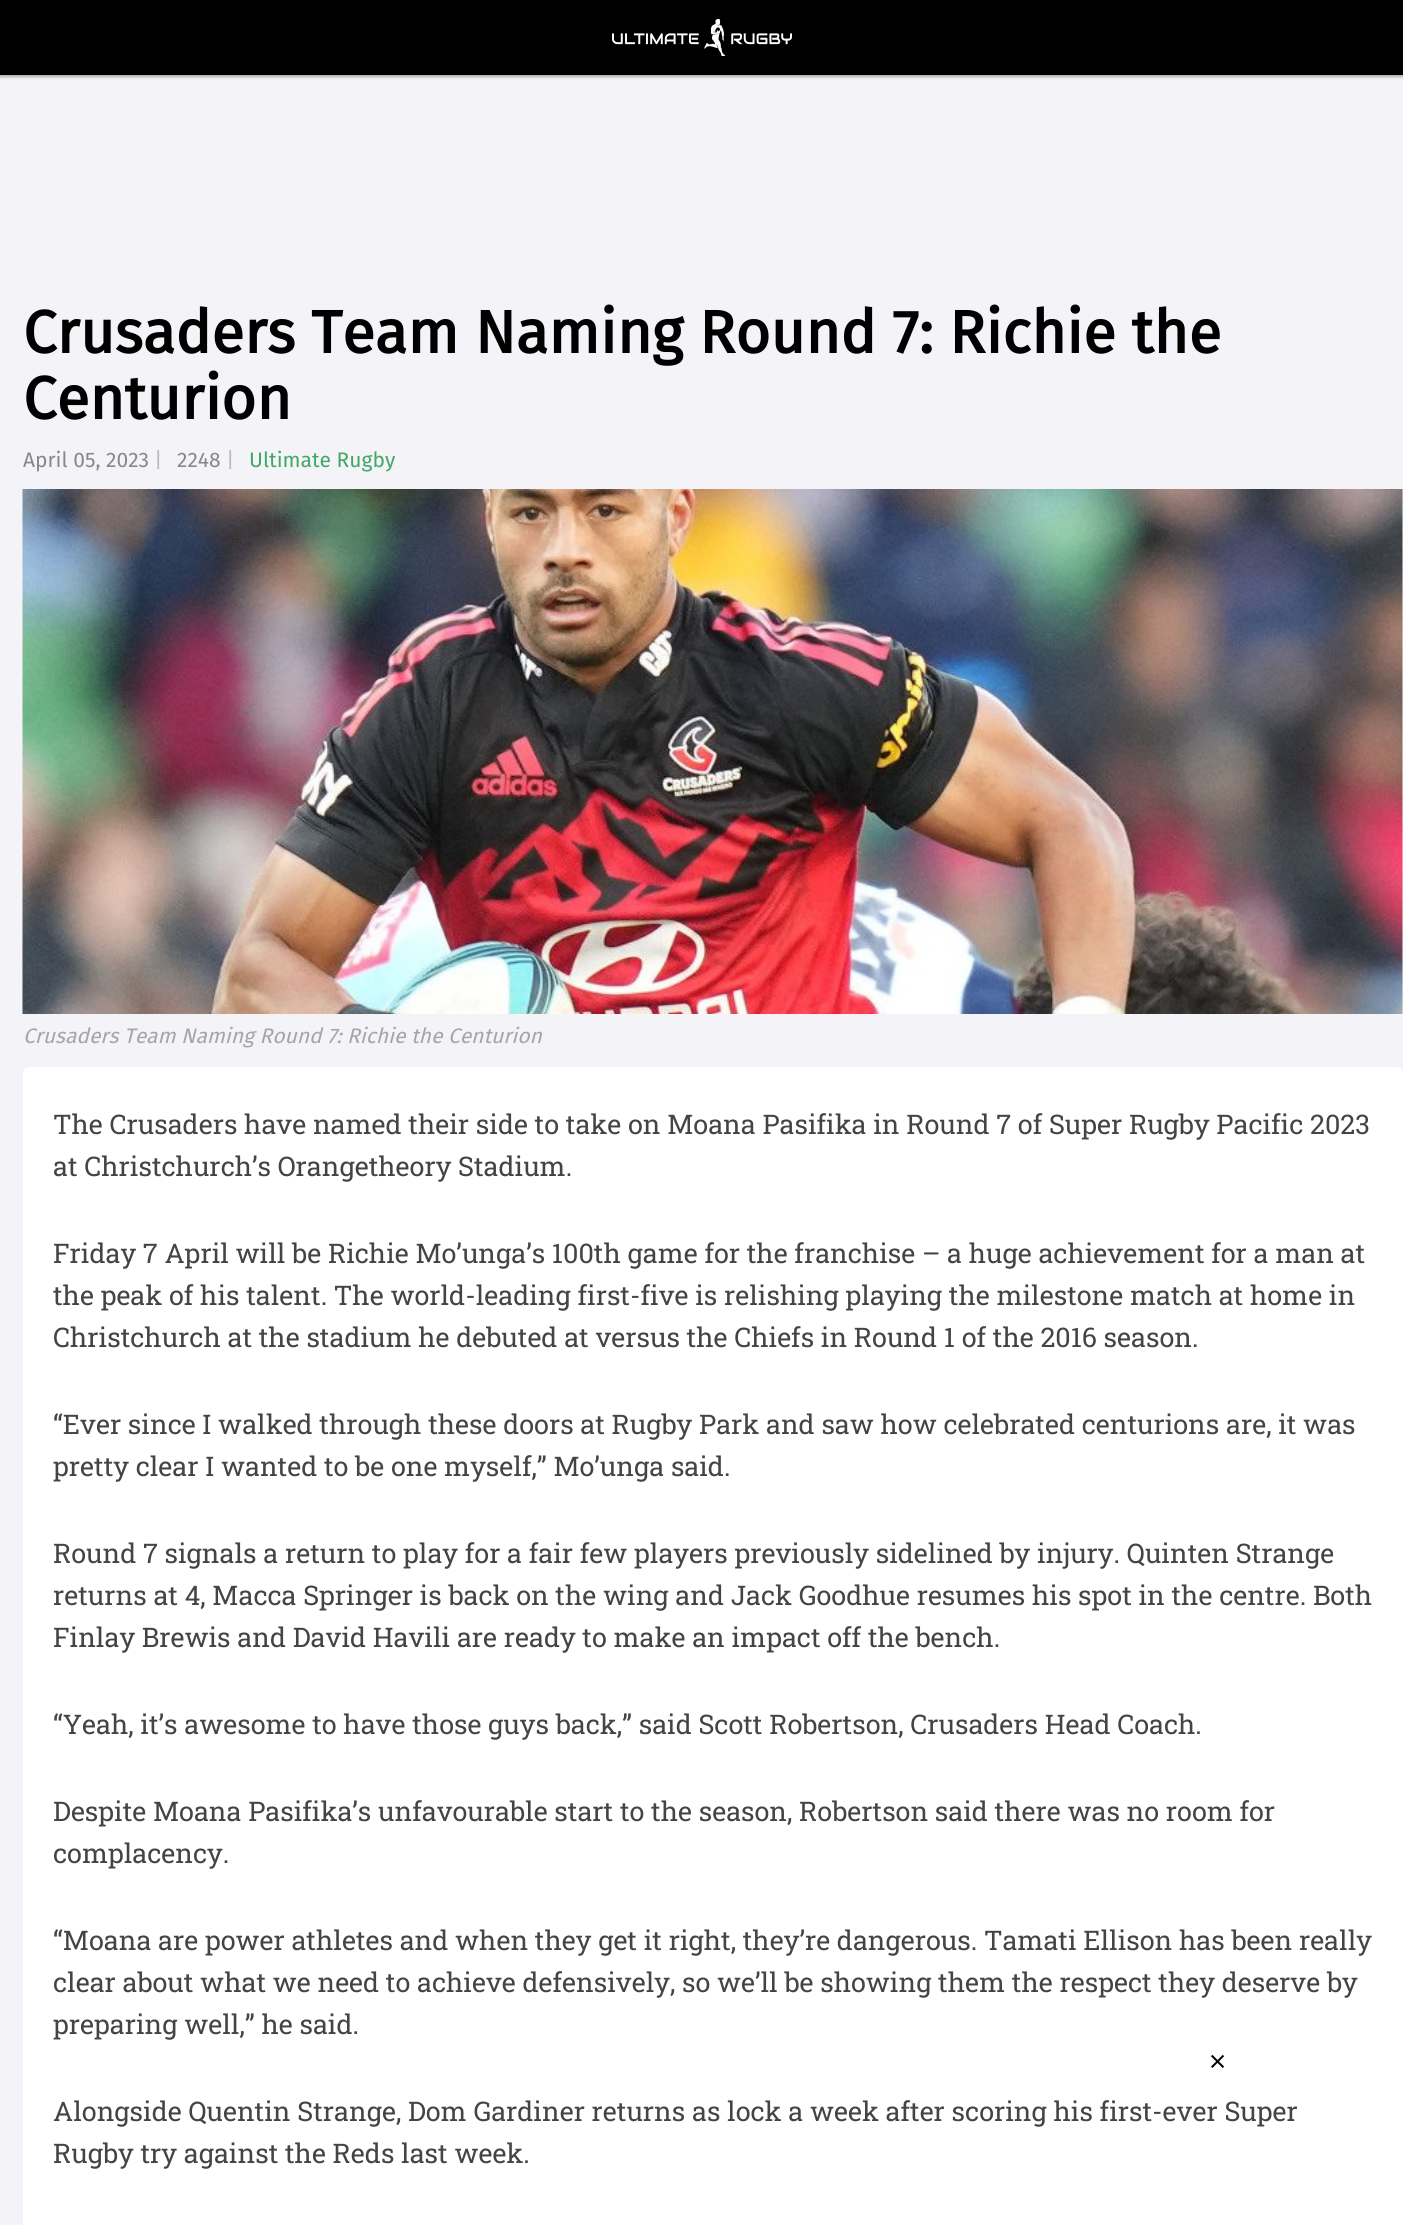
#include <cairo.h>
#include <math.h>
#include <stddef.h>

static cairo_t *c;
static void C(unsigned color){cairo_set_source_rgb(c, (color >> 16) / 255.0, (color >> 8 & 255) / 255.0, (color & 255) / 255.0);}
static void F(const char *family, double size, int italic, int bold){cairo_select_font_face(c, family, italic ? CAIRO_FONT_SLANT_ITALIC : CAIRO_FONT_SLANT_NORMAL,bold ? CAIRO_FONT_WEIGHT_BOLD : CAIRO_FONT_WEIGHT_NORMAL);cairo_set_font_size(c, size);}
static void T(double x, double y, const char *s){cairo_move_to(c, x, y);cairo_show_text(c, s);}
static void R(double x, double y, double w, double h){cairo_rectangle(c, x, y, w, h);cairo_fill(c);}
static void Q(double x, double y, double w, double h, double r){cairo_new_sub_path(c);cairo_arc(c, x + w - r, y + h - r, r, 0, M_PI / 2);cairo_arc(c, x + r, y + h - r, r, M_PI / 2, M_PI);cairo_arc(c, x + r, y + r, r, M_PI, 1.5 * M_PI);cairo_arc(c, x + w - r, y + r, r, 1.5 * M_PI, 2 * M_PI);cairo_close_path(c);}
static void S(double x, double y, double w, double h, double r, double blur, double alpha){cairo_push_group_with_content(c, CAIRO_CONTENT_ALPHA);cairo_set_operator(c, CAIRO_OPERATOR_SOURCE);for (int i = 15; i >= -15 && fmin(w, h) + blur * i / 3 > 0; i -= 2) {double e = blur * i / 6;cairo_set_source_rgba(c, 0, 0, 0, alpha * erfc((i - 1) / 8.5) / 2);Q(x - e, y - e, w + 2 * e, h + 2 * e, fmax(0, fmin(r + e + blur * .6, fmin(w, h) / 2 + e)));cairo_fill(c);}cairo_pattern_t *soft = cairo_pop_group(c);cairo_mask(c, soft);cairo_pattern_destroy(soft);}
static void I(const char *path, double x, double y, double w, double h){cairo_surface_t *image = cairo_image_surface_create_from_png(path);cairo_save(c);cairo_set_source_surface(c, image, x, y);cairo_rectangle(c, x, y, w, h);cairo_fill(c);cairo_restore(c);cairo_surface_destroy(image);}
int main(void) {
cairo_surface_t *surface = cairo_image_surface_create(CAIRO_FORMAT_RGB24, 1403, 2225);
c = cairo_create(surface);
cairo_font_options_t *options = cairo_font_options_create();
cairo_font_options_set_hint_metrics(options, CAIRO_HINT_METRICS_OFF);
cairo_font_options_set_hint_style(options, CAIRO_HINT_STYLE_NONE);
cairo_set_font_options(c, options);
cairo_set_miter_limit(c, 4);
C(0xf3f3f8);
cairo_paint(c);
C(0x000000);
S(0,2,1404,75,0,1.5,.3);
C(0x000000);
R(0,0,1403,75);
I("1.png",612,18,180,39);
F("Fira Sans",60,0,1);
T(23,353,"Crusaders Team Naming Round 7: Richie the");
T(23,419,"Centurion");
F("Fira Sans",21,0,0);
C(0x888888);
T(23,467,"April 05, 2023");
C(0xbbbbbb);
T(154,467,"|");
C(0x888888);
T(177,467,"2248");
C(0xbbbbbb);
T(226,467,"|");
C(0x41a764);
T(249,467,"Ultimate Rugby");
I("2.png",22,489,1381,525);
F("Fira Sans",21,1,0);
C(0xa5a5a5);
T(23,1043,"Crusaders Team Naming Round 7: Richie the Centurion");
C(0xffffff);
Q(23,1067,1380,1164,6);
cairo_fill(c);
F("Roboto Slab",27,0,0);
C(0x444444);
T(53,1134,"The Crusaders have named their side to take on Moana Pasifika in Round 7 of Super Rugby Pacific 2023");
T(53,1176,"at Christchurch’s Orangetheory Stadium.");
T(53,1263,"Friday 7 April will be Richie Mo’unga’s 100th game for the franchise – a huge achievement for a man at");
T(53,1305,"the peak of his talent. The world-leading first-five is relishing playing the milestone match at home in");
T(53,1347,"Christchurch at the stadium he debuted at versus the Chiefs in Round 1 of the 2016 season.");
T(53,1434,"“Ever since I walked through these doors at Rugby Park and saw how celebrated centurions are, it was");
T(53,1476,"pretty clear I wanted to be one myself,” Mo’unga said.");
T(53,1563,"Round 7 signals a return to play for a fair few players previously sidelined by injury. Quinten Strange");
T(53,1605,"returns at 4, Macca Springer is back on the wing and Jack Goodhue resumes his spot in the centre. Both");
T(53,1647,"Finlay Brewis and David Havili are ready to make an impact off the bench.");
T(53,1734,"“Yeah, it’s awesome to have those guys back,” said Scott Robertson, Crusaders Head Coach.");
T(53,1821,"Despite Moana Pasifika’s unfavourable start to the season, Robertson said there was no room for");
T(53,1863,"complacency.");
T(53,1950,"“Moana are power athletes and when they get it right, they’re dangerous. Tamati Ellison has been really");
T(53,1992,"clear about what we need to achieve defensively, so we’ll be showing them the respect they deserve by");
T(53,2034,"preparing well,” he said.");
T(53,2121,"Alongside Quentin Strange, Dom Gardiner returns as lock a week after scoring his first-ever Super");
T(53,2163,"Rugby try against the Reds last week.");
F("Open Sans",30,0,0);
C(0x000000);
T(1209,2072,"×");
cairo_surface_write_to_png(surface, "o.png");
cairo_font_options_destroy(options);
cairo_destroy(c);
cairo_surface_destroy(surface);
return 0;
}
